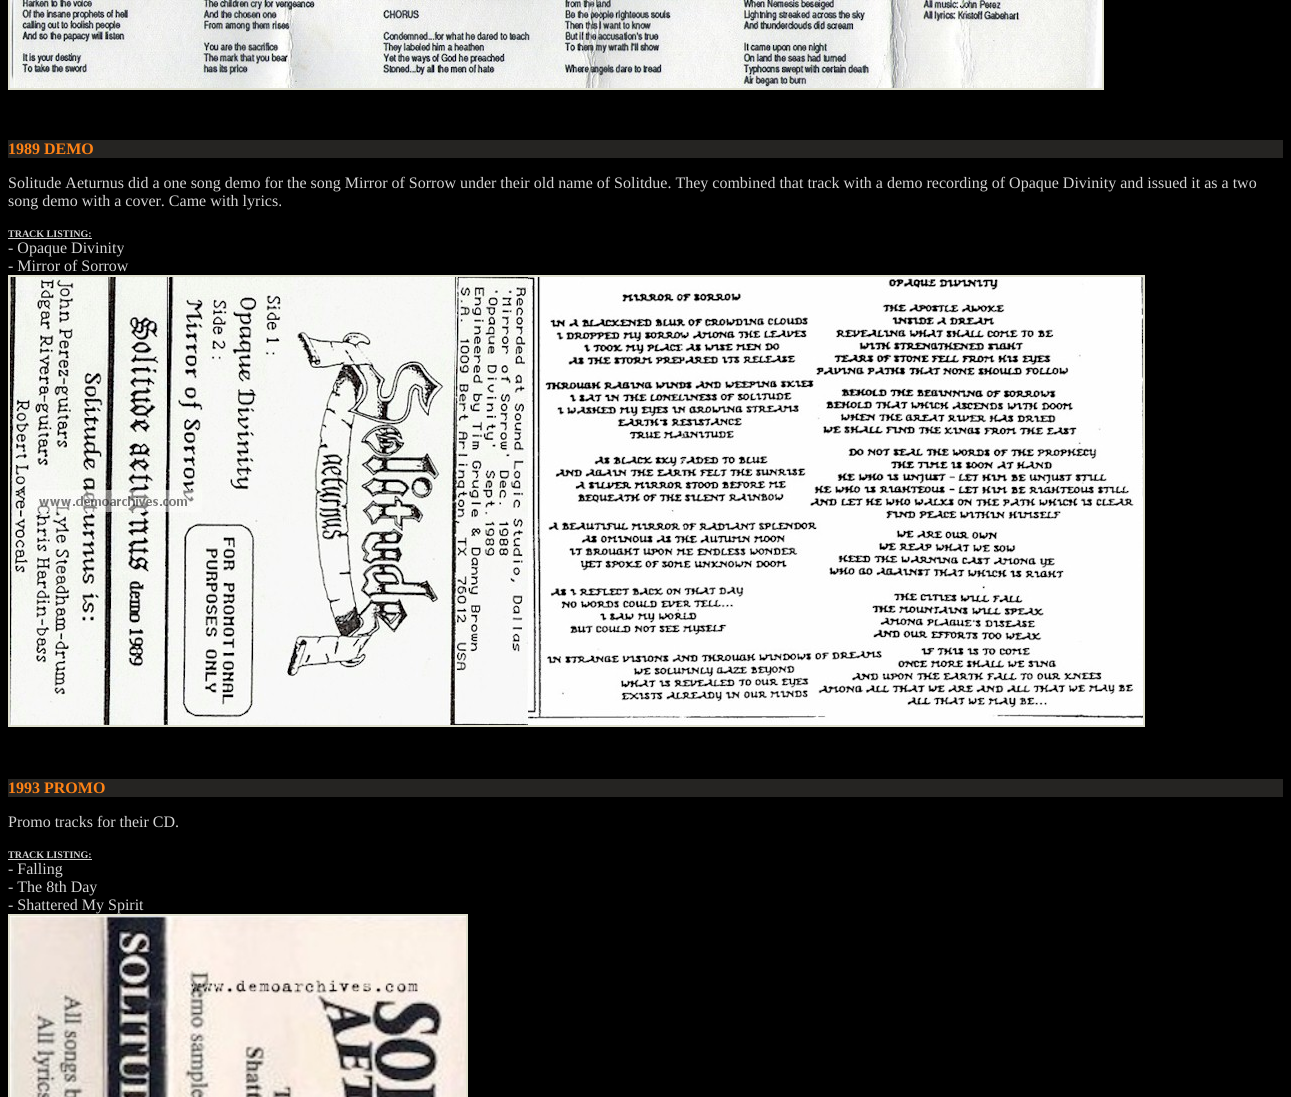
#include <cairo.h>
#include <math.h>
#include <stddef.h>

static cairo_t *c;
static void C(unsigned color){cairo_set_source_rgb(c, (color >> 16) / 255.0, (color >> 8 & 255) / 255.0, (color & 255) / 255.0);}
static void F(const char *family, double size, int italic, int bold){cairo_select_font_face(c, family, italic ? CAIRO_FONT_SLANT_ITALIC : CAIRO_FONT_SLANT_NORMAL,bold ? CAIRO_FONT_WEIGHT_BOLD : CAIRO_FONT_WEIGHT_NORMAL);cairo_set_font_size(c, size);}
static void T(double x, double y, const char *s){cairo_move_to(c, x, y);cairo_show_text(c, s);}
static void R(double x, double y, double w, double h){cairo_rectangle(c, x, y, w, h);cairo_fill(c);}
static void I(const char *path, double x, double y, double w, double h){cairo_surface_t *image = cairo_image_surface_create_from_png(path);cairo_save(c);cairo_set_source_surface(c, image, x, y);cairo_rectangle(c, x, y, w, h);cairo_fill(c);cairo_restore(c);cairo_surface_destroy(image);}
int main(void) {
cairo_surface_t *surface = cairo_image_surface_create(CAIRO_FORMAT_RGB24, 1291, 1097);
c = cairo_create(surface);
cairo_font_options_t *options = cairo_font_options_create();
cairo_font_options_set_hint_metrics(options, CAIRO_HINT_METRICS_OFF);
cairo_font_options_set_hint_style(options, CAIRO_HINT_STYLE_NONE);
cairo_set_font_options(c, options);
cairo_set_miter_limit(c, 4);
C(0x000000);
cairo_paint(c);
cairo_rectangle(c,9,-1,1094,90);
C(0xe1e1d0);
cairo_stroke(c);
I("1.png",10,0,1092,88);
C(0x252422);
R(8,140,1275,18);
F("Liberation Serif",16,0,1);
C(0xff8214);
T(8,154,"1989 DEMO");
F("Liberation Serif",16,0,0);
C(0xd4d4d4);
T(8,188,"Solitude Aeturnus did a one song demo for the song Mirror of Sorrow under their old name of Solitdue. They combined that track with a demo recording of Opaque Divinity and issued it as a two");
T(8,206,"song demo with a cover. Came with lyrics.");
F("Liberation Serif",10,0,1);
T(8,237,"TRACK LISTING:");
R(8,238,84,1);
F("Liberation Serif",16,0,0);
T(8,253,"- Opaque Divinity");
T(8,271,"- Mirror of Sorrow");
cairo_rectangle(c,9,276,1135,450);
C(0xe1e1d0);
cairo_stroke(c);
I("2.png",10,277,1133,448);
C(0x252422);
R(8,779,1275,18);
F("Liberation Serif",16,0,1);
C(0xff8214);
T(8,793,"1993 PROMO");
F("Liberation Serif",16,0,0);
C(0xd4d4d4);
T(8,827,"Promo tracks for their CD.");
F("Liberation Serif",10,0,1);
T(8,858,"TRACK LISTING:");
R(8,859,84,1);
F("Liberation Serif",16,0,0);
T(8,874,"- Falling");
T(8,892,"- The 8th Day");
T(8,910,"- Shattered My Spirit");
cairo_rectangle(c,9,915,458,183);
C(0xe1e1d0);
cairo_stroke(c);
I("3.png",10,916,456,181);
cairo_surface_write_to_png(surface, "o.png");
cairo_font_options_destroy(options);
cairo_destroy(c);
cairo_surface_destroy(surface);
return 0;
}
